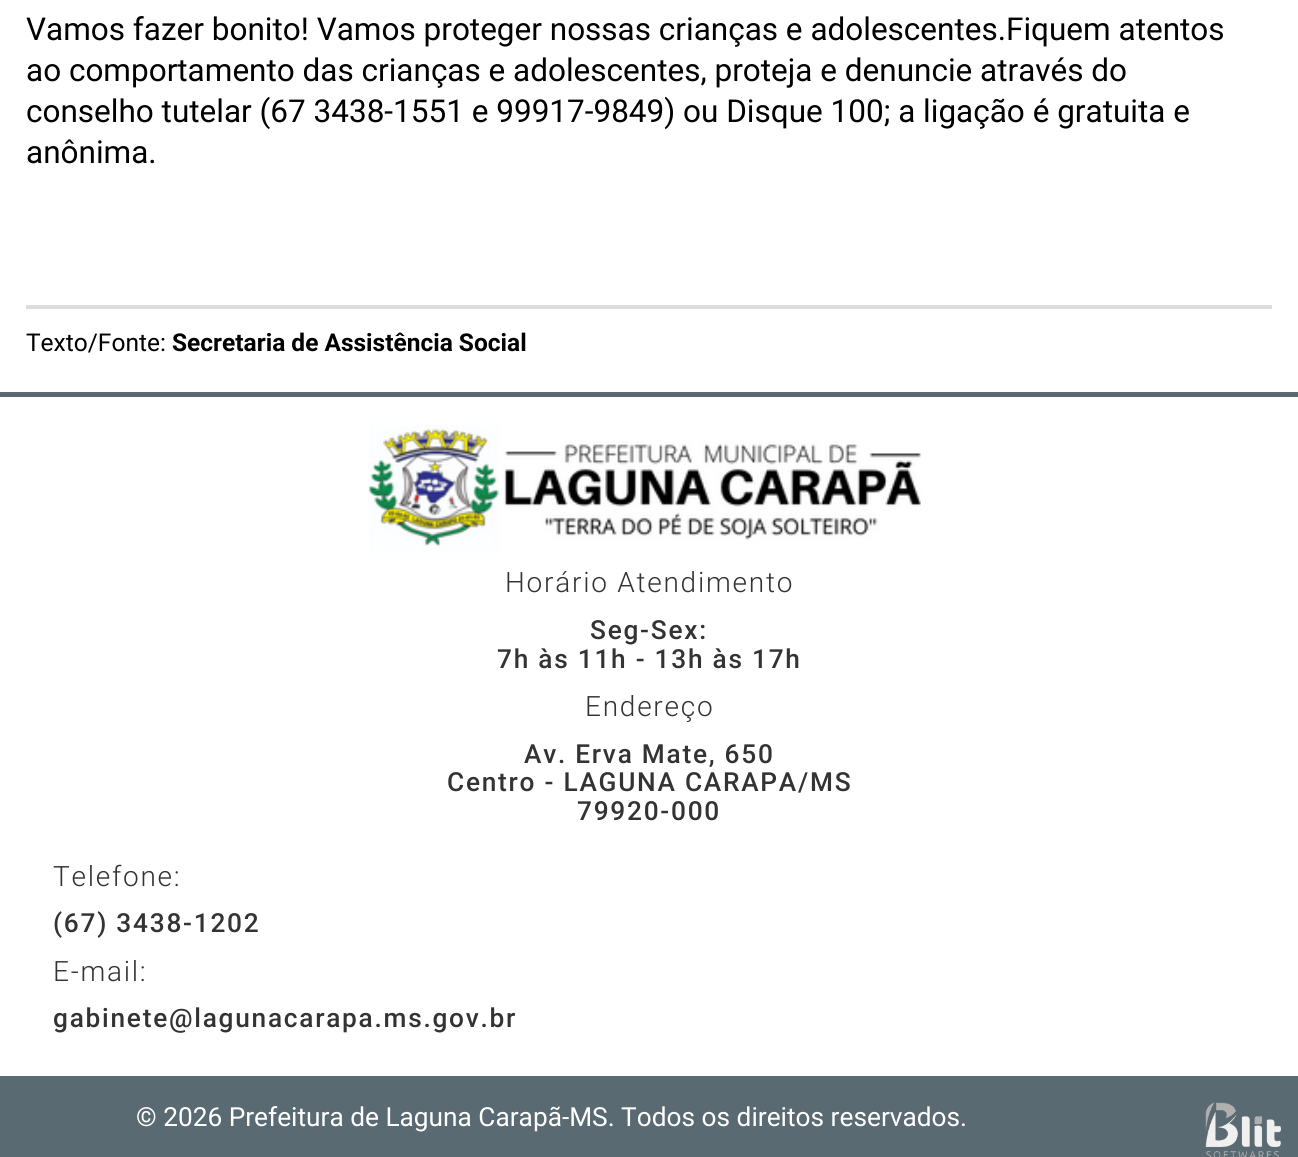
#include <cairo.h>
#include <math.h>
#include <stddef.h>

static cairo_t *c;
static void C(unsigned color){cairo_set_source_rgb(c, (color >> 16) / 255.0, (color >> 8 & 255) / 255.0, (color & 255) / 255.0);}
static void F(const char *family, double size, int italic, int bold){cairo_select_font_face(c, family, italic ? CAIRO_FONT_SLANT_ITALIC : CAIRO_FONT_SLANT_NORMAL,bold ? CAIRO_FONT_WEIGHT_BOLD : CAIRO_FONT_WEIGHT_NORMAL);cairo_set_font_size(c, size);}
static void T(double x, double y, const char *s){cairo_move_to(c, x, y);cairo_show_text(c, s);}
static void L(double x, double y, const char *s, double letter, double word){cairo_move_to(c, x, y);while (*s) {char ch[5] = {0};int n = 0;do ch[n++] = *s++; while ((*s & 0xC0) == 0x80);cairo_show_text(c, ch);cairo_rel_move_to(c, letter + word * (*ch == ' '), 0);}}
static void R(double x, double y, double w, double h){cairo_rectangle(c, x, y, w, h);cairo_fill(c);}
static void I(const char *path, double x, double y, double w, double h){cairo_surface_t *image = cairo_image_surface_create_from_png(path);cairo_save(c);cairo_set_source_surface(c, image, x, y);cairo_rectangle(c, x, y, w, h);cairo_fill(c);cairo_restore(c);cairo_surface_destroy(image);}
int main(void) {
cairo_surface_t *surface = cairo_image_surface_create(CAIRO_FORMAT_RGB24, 1298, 1157);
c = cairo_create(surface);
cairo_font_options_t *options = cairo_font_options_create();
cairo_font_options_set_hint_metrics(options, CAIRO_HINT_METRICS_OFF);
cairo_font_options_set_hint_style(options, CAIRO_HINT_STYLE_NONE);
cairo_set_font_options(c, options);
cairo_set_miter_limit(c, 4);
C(0xffffff);
cairo_paint(c);
F("Roboto",31.5,0,0);
C(0x000000);
T(26,40,"Vamos fazer bonito! Vamos proteger nossas crianças e adolescentes.Fiquem atentos");
T(26,81,"ao comportamento das crianças e adolescentes, proteja e denuncie através do");
T(26,122,"conselho tutelar (67 3438-1551 e 99917-9849) ou Disque 100; a ligação é gratuita e");
T(26,163,"anônima.");
C(0xdddddd);
R(26,305,1246,4);
F("Roboto",24.5,0,0);
C(0x000000);
T(26,351,"Texto/Fonte:");
F("Roboto",24.5,0,1);
T(172,351,"Secretaria de Assistência Social");
C(0x5a6a73);
R(0,392,1298,5);
I("1.png",368,425,553,126);
F("Roboto Light",28,0,0);
C(0x333333);
L(505,592,"Horário Atendimento",1.75,0);
F("Roboto Medium",26.25,0,0);
L(590,639,"Seg-Sex:",1.75,0);
L(497,668,"7h às 11h - 13h às 17h",1.75,0);
F("Roboto Light",28,0,0);
L(585,716,"Endereço",1.75,0);
F("Roboto Medium",26.25,0,0);
L(524,763,"Av. Erva Mate, 650",1.75,0);
L(447,791,"Centro - LAGUNA CARAPA/MS",1.75,0);
L(577,820,"79920-000",1.75,0);
F("Roboto Light",28,0,0);
L(53,886,"Telefone:",1.75,0);
F("Roboto Medium",26.25,0,0);
L(53,932,"(67) 3438-1202",1.75,0);
F("Roboto Light",28,0,0);
L(53,981,"E-mail:",1.75,0);
F("Roboto Medium",26.25,0,0);
L(53,1027,"gabinete@lagunacarapa.ms.gov.br",1.75,0);
C(0x5a6a73);
R(0,1076,1298,81);
F("Roboto",26.25,0,0);
C(0xffffff);
T(136,1126,"© 2026 Prefeitura de Laguna Carapã-MS. Todos os direitos reservados.");
I("2.png",1205,1102,76,55);
cairo_surface_write_to_png(surface, "o.png");
cairo_font_options_destroy(options);
cairo_destroy(c);
cairo_surface_destroy(surface);
return 0;
}
